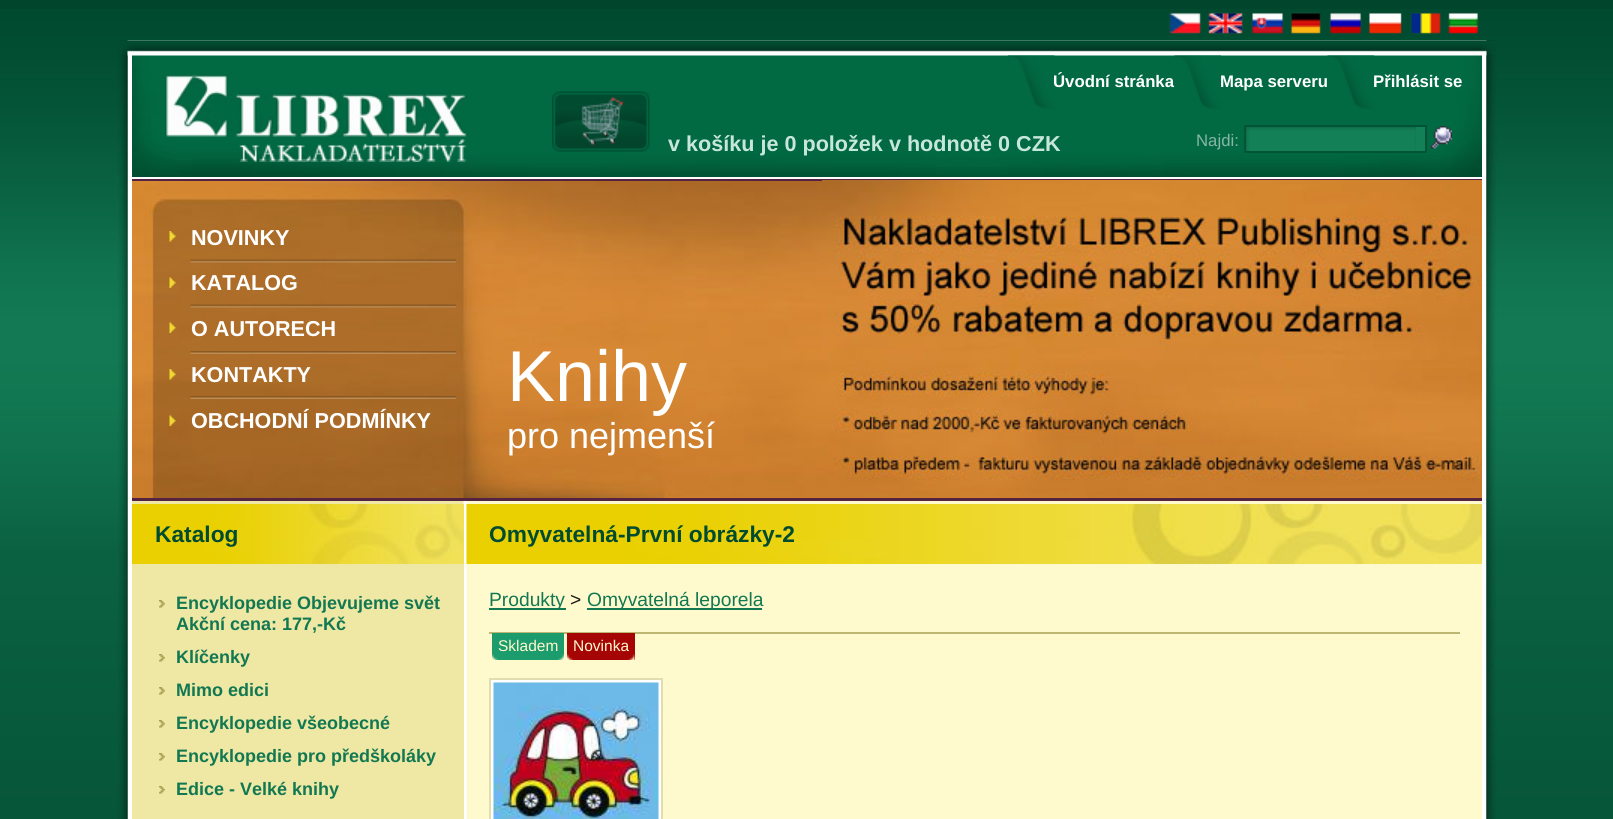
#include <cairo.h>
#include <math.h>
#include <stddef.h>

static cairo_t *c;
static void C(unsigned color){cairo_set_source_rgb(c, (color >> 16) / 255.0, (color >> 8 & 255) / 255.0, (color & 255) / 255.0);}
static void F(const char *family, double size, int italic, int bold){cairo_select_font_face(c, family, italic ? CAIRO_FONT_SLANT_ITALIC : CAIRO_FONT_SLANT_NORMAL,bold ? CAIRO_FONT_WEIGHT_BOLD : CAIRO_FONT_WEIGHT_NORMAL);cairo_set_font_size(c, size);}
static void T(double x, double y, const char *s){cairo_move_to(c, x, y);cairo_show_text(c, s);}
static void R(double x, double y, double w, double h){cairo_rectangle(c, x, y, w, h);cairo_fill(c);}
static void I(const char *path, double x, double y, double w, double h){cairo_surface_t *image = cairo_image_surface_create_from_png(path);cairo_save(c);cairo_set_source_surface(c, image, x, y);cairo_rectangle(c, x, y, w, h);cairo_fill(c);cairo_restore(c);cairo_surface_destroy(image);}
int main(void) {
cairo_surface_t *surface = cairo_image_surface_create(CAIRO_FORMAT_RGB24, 1613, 819);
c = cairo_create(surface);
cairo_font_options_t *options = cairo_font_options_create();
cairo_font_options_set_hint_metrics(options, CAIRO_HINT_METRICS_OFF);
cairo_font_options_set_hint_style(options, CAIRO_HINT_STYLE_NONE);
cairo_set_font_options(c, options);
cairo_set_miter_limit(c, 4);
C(0x00452c);
cairo_paint(c);
I("1.png",0,9,1613,810);
I("2.png",1168,12,34,23);
I("3.png",1207,12,37,23);
I("4.png",1251,12,33,23);
I("5.png",1290,12,32,23);
I("6.png",1329,12,33,23);
I("7.png",1368,12,34,22);
I("8.png",1410,12,32,23);
I("9.png",1447,12,32,23);
I("10.png",117,40,1380,779);
I("11.png",117,40,1380,16);
I("12.png",117,55,11,764);
I("13.png",1486,55,11,764);
I("14.png",132,55,1350,122);
I("15.png",165,74,303,88);
I("16.png",1008,55,47,54);
F("Liberation Sans",16.75,0,1);
C(0xffffff);
T(1053,87,"Úvodní stránka");
I("17.png",1174,55,47,54);
T(1220,87,"Mapa serveru");
I("18.png",1327,55,47,54);
T(1373,87,"Přihlásit se");
I("19.png",552,91,98,61);
F("Liberation Sans",21.6,0,1);
C(0xc8e7dc);
T(668,151,"v košíku je 0 položek v hodnotě 0 CZK");
F("Liberation Sans",16.75,0,0);
C(0x87b6a5);
T(1196,146,"Najdi:");
C(0x148058);
R(1416,127,9,24);
I("20.png",1246,127,170,24);
cairo_rectangle(c,1245,126,181,26);
C(0x015436);
cairo_stroke(c);
I("21.png",1431,126,21,23);
I("22.png",132,181,1350,317);
C(0x542342);
R(132,179,1350,2);
R(132,498,1350,3);
I("23.png",822,180,660,300);
I("24.png",169,231,7,11);
F("Liberation Sans",21.6,0,1);
C(0xffffff);
T(191,245,"NOVINKY");
I("25.png",190,259,266,4);
I("26.png",169,277,7,11);
T(191,290,"KATALOG");
I("27.png",190,304,266,4);
I("28.png",169,322,7,11);
T(191,336,"O AUTORECH");
I("29.png",190,351,266,3);
I("30.png",169,369,7,11);
T(191,382,"KONTAKTY");
I("31.png",190,396,266,3);
I("32.png",169,415,7,11);
T(191,428,"OBCHODNÍ PODMÍNKY");
F("Liberation Sans",72,0,0);
T(507,401,"Knihy");
F("Liberation Sans",36,0,0);
T(507,448,"pro nejmenší");
I("33.png",132,501,1350,318);
C(0xefe7a4);
R(463,564,1,255);
C(0xf1e158);
R(463,504,1,60);
I("34.png",132,504,332,60);
F("Liberation Sans",22.75,0,1);
C(0x014b30);
T(155,542,"Katalog");
I("35.png",159,600,6,8);
F("Liberation Sans",18,0,1);
C(0x127852);
T(176,609,"Encyklopedie Objevujeme svět");
T(176,630,"Akční cena: 177,-Kč");
I("35.png",159,654,6,8);
T(176,663,"Klíčenky");
I("35.png",159,687,6,8);
T(176,696,"Mimo edici");
I("35.png",159,720,6,8);
T(176,729,"Encyklopedie všeobecné");
I("35.png",159,753,6,8);
T(176,762,"Encyklopedie pro předškoláky");
I("35.png",159,786,6,8);
T(176,795,"Edice - Velké knihy");
I("36.png",466,504,1016,60);
F("Liberation Sans",22.75,0,1);
C(0x014b30);
T(489,542,"Omyvatelná-První obrázky-2");
C(0x127852);
R(489,608,77,2);
F("Liberation Sans",19.25,0,0);
T(489,606,"Produkty");
C(0x181818);
T(570,606,">");
C(0x127852);
R(587,608,175,2);
T(587,606,"Omyvatelná leporela");
C(0xbeb673);
R(489,632,971,2);
C(0x1c9b6c);
R(492,633,72,27);
I("37.png",492,654,6,6);
I("38.png",558,654,6,6);
F("Liberation Sans",15.5,0,0);
C(0xffface);
T(498,651,"Skladem");
C(0xa60505);
R(567,633,68,27);
I("39.png",567,654,6,6);
I("40.png",628,654,7,6);
C(0xffface);
T(573,651,"Novinka");
C(0xffffff);
cairo_rectangle(c,490,679,172,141);
cairo_fill_preserve(c);
C(0xe2ddaf);
cairo_stroke(c);
I("41.png",493,682,166,137);
cairo_surface_write_to_png(surface, "o.png");
cairo_font_options_destroy(options);
cairo_destroy(c);
cairo_surface_destroy(surface);
return 0;
}
